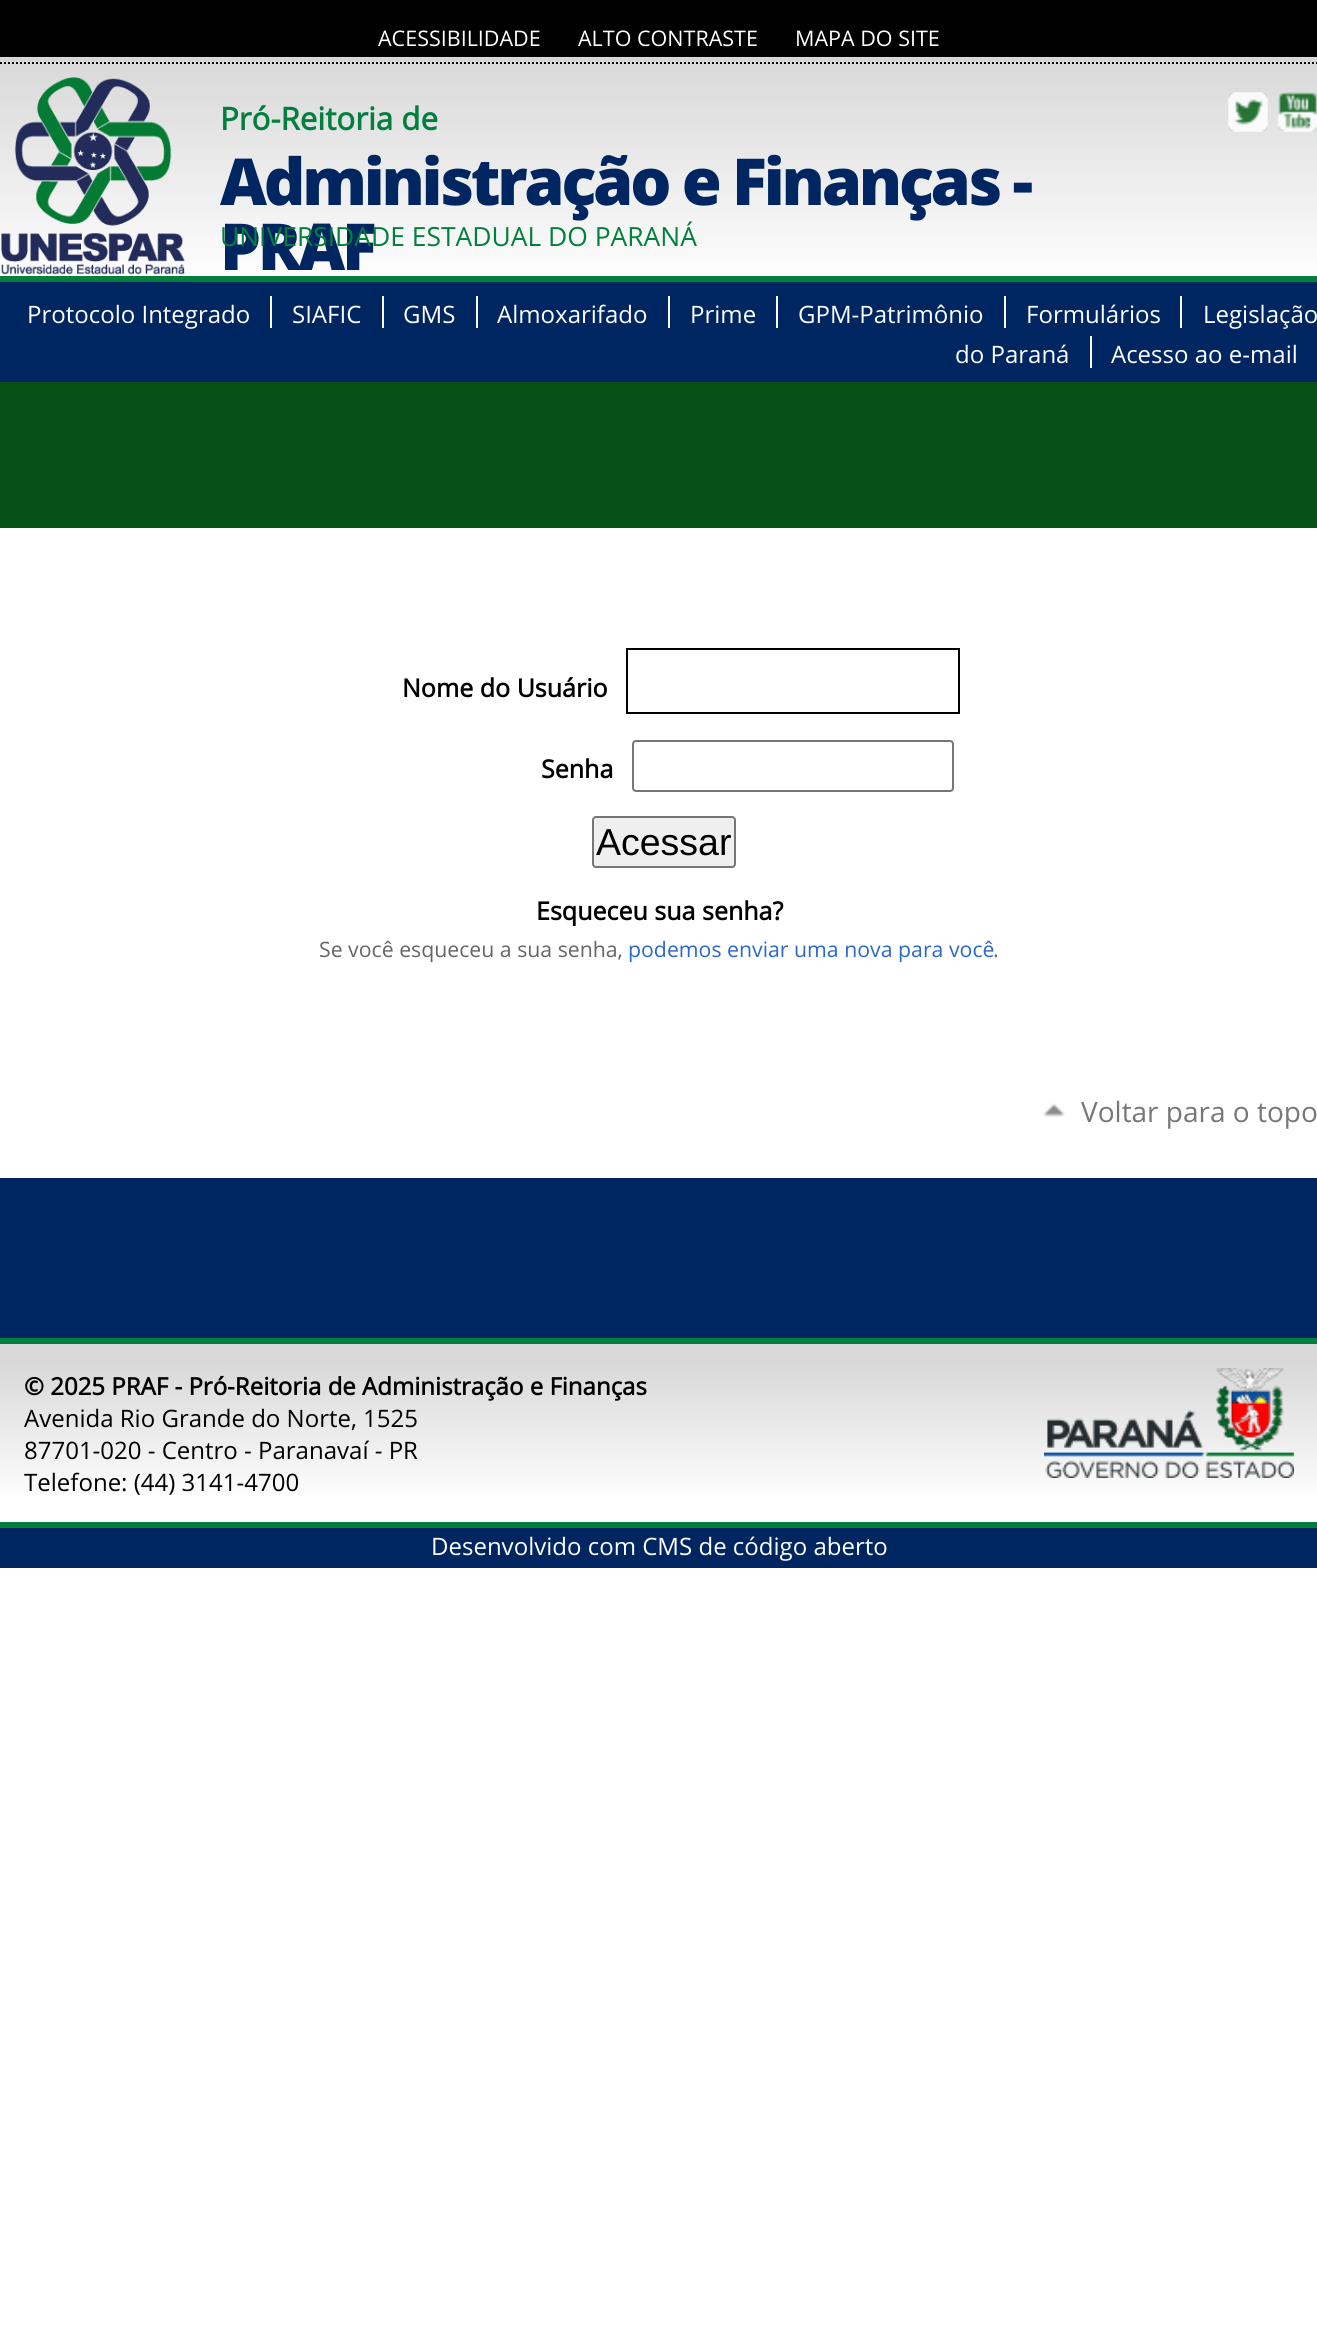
#include <cairo.h>
#include <math.h>
#include <stddef.h>

static cairo_t *c;
static void C(unsigned color){cairo_set_source_rgb(c, (color >> 16) / 255.0, (color >> 8 & 255) / 255.0, (color & 255) / 255.0);}
static void F(const char *family, double size, int italic, int bold){cairo_select_font_face(c, family, italic ? CAIRO_FONT_SLANT_ITALIC : CAIRO_FONT_SLANT_NORMAL,bold ? CAIRO_FONT_WEIGHT_BOLD : CAIRO_FONT_WEIGHT_NORMAL);cairo_set_font_size(c, size);}
static void T(double x, double y, const char *s){cairo_move_to(c, x, y);cairo_show_text(c, s);}
static void L(double x, double y, const char *s, double letter, double word){cairo_move_to(c, x, y);while (*s) {char ch[5] = {0};int n = 0;do ch[n++] = *s++; while ((*s & 0xC0) == 0x80);cairo_show_text(c, ch);cairo_rel_move_to(c, letter + word * (*ch == ' '), 0);}}
static void R(double x, double y, double w, double h){cairo_rectangle(c, x, y, w, h);cairo_fill(c);}
static void Q(double x, double y, double w, double h, double r){cairo_new_sub_path(c);cairo_arc(c, x + w - r, y + h - r, r, 0, M_PI / 2);cairo_arc(c, x + r, y + h - r, r, M_PI / 2, M_PI);cairo_arc(c, x + r, y + r, r, M_PI, 1.5 * M_PI);cairo_arc(c, x + w - r, y + r, r, 1.5 * M_PI, 2 * M_PI);cairo_close_path(c);}
static void I(const char *path, double x, double y, double w, double h){cairo_surface_t *image = cairo_image_surface_create_from_png(path);cairo_save(c);cairo_set_source_surface(c, image, x, y);cairo_rectangle(c, x, y, w, h);cairo_fill(c);cairo_restore(c);cairo_surface_destroy(image);}
int main(void) {
cairo_surface_t *surface = cairo_image_surface_create(CAIRO_FORMAT_RGB24, 1317, 2344);
c = cairo_create(surface);
cairo_font_options_t *options = cairo_font_options_create();
cairo_font_options_set_hint_metrics(options, CAIRO_HINT_METRICS_OFF);
cairo_font_options_set_hint_style(options, CAIRO_HINT_STYLE_NONE);
cairo_set_font_options(c, options);
cairo_set_miter_limit(c, 4);
cairo_pattern_t *gradient;
C(0xffffff);
cairo_paint(c);
gradient = cairo_pattern_create_linear(659,0,659,382);
cairo_pattern_add_color_stop_rgba(gradient,.15,0,0,0,1);
cairo_pattern_add_color_stop_rgba(gradient,.15,0.847,0.847,0.847,1);
cairo_pattern_add_color_stop_rgba(gradient,.75,1,1,1,1);
cairo_set_source(c,gradient);
cairo_pattern_destroy(gradient);
R(0,0,1317,272);
cairo_new_path(c);
cairo_move_to(c,0,63);
cairo_line_to(c,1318,63);
C(0x000000);
cairo_set_dash(c,(double[]){2,2},2,0);
cairo_stroke(c);
F("Open Sans",21.5,0,0);
C(0xffffff);
T(378,46,"ACESSIBILIDADE");
T(578,46,"ALTO CONTRASTE");
T(795,46,"MAPA DO SITE");
I("1.png",1,77,184,198);
F("Open Sans",31.25,0,1);
C(0x007f3d);
T(220,130,"Pró-Reitoria de");
F("Open Sans ExtraBold",64.75,0,0);
C(0x002661);
L(220,205,"Administração e Finanças -",-3.25,0);
L(220,270,"PRAF",-3.25,0);
F("Open Sans",26.4,0,0);
C(0x007f3d);
T(220,246,"UNIVERSIDADE ESTADUAL DO PARANÁ");
I("2.png",1228,92,40,40);
I("3.png",1278,92,39,40);
C(0x002661);
R(0,282,1317,100);
C(0x007f3d);
R(0,276,1317,6);
F("Open Sans",24,0,0);
C(0xffffff);
T(27,323,"Protocolo Integrado");
R(270,296,2,32);
T(292,323,"SIAFIC");
R(382,296,2,32);
T(403,323,"GMS");
R(476,296,2,32);
T(497,323,"Almoxarifado");
R(668,296,2,32);
T(690,323,"Prime");
R(776,296,2,32);
T(798,323,"GPM-Patrimônio");
R(1004,296,2,32);
T(1026,323,"Formulários");
R(1180,296,2,32);
T(1203,323,"Legislação");
T(955,363,"do Paraná");
R(1090,336,2,32);
T(1111,363,"Acesso ao e-mail");
C(0x065116);
R(0,382,1317,146);
F("Open Sans",25,0,1);
C(0x000000);
T(402,697,"Nome do Usuário");
cairo_rectangle(c,627,649,332,64);
cairo_set_dash(c,NULL,0,0);
cairo_stroke(c);
T(541,778,"Senha");
Q(633,741,320,50,3);
C(0x767676);
cairo_stroke(c);
C(0xefefef);
Q(593,817,142,50,3);
cairo_fill_preserve(c);
C(0x767676);
cairo_stroke(c);
F("Liberation Sans",37.5,0,0);
C(0x000000);
T(596,855,"Acessar");
F("Open Sans",25,0,1);
T(536,920,"Esqueceu sua senha?");
F("Open Sans",21.25,0,0);
C(0x666666);
T(319,957,"Se você esqueceu a sua senha,");
C(0x2c67cd);
T(628,957,"podemos enviar uma nova para você");
C(0x666666);
T(993,957,".");
I("4.png",1043,1103,22,14);
F("Open Sans",28,0,0);
C(0x777777);
T(1081,1122,"Voltar para o topo");
C(0x002661);
R(0,1178,1317,160);
gradient = cairo_pattern_create_linear(659,1344,659,1522);
cairo_pattern_add_color_stop_rgba(gradient,.1,0.847,0.847,0.847,1);
cairo_pattern_add_color_stop_rgba(gradient,.9,1,1,1,1);
cairo_set_source(c,gradient);
cairo_pattern_destroy(gradient);
R(0,1344,1317,151);
C(0x007f3d);
R(0,1338,1317,6);
R(0,1522,1317,6);
F("Open Sans",24,0,1);
C(0x000000);
T(24,1395,"© 2025 PRAF - Pró-Reitoria de Administração e Finanças");
F("Open Sans",24,0,0);
T(24,1427,"Avenida Rio Grande do Norte, 1525");
T(24,1459,"87701-020 - Centro - Paranavaí - PR");
T(24,1491,"Telefone: (44) 3141-4700");
I("5.png",1044,1368,250,110);
C(0x002661);
R(0,1528,1317,40);
C(0xffffff);
T(431,1555,"Desenvolvido com CMS de código aberto");
cairo_surface_write_to_png(surface, "o.png");
cairo_font_options_destroy(options);
cairo_destroy(c);
cairo_surface_destroy(surface);
return 0;
}
